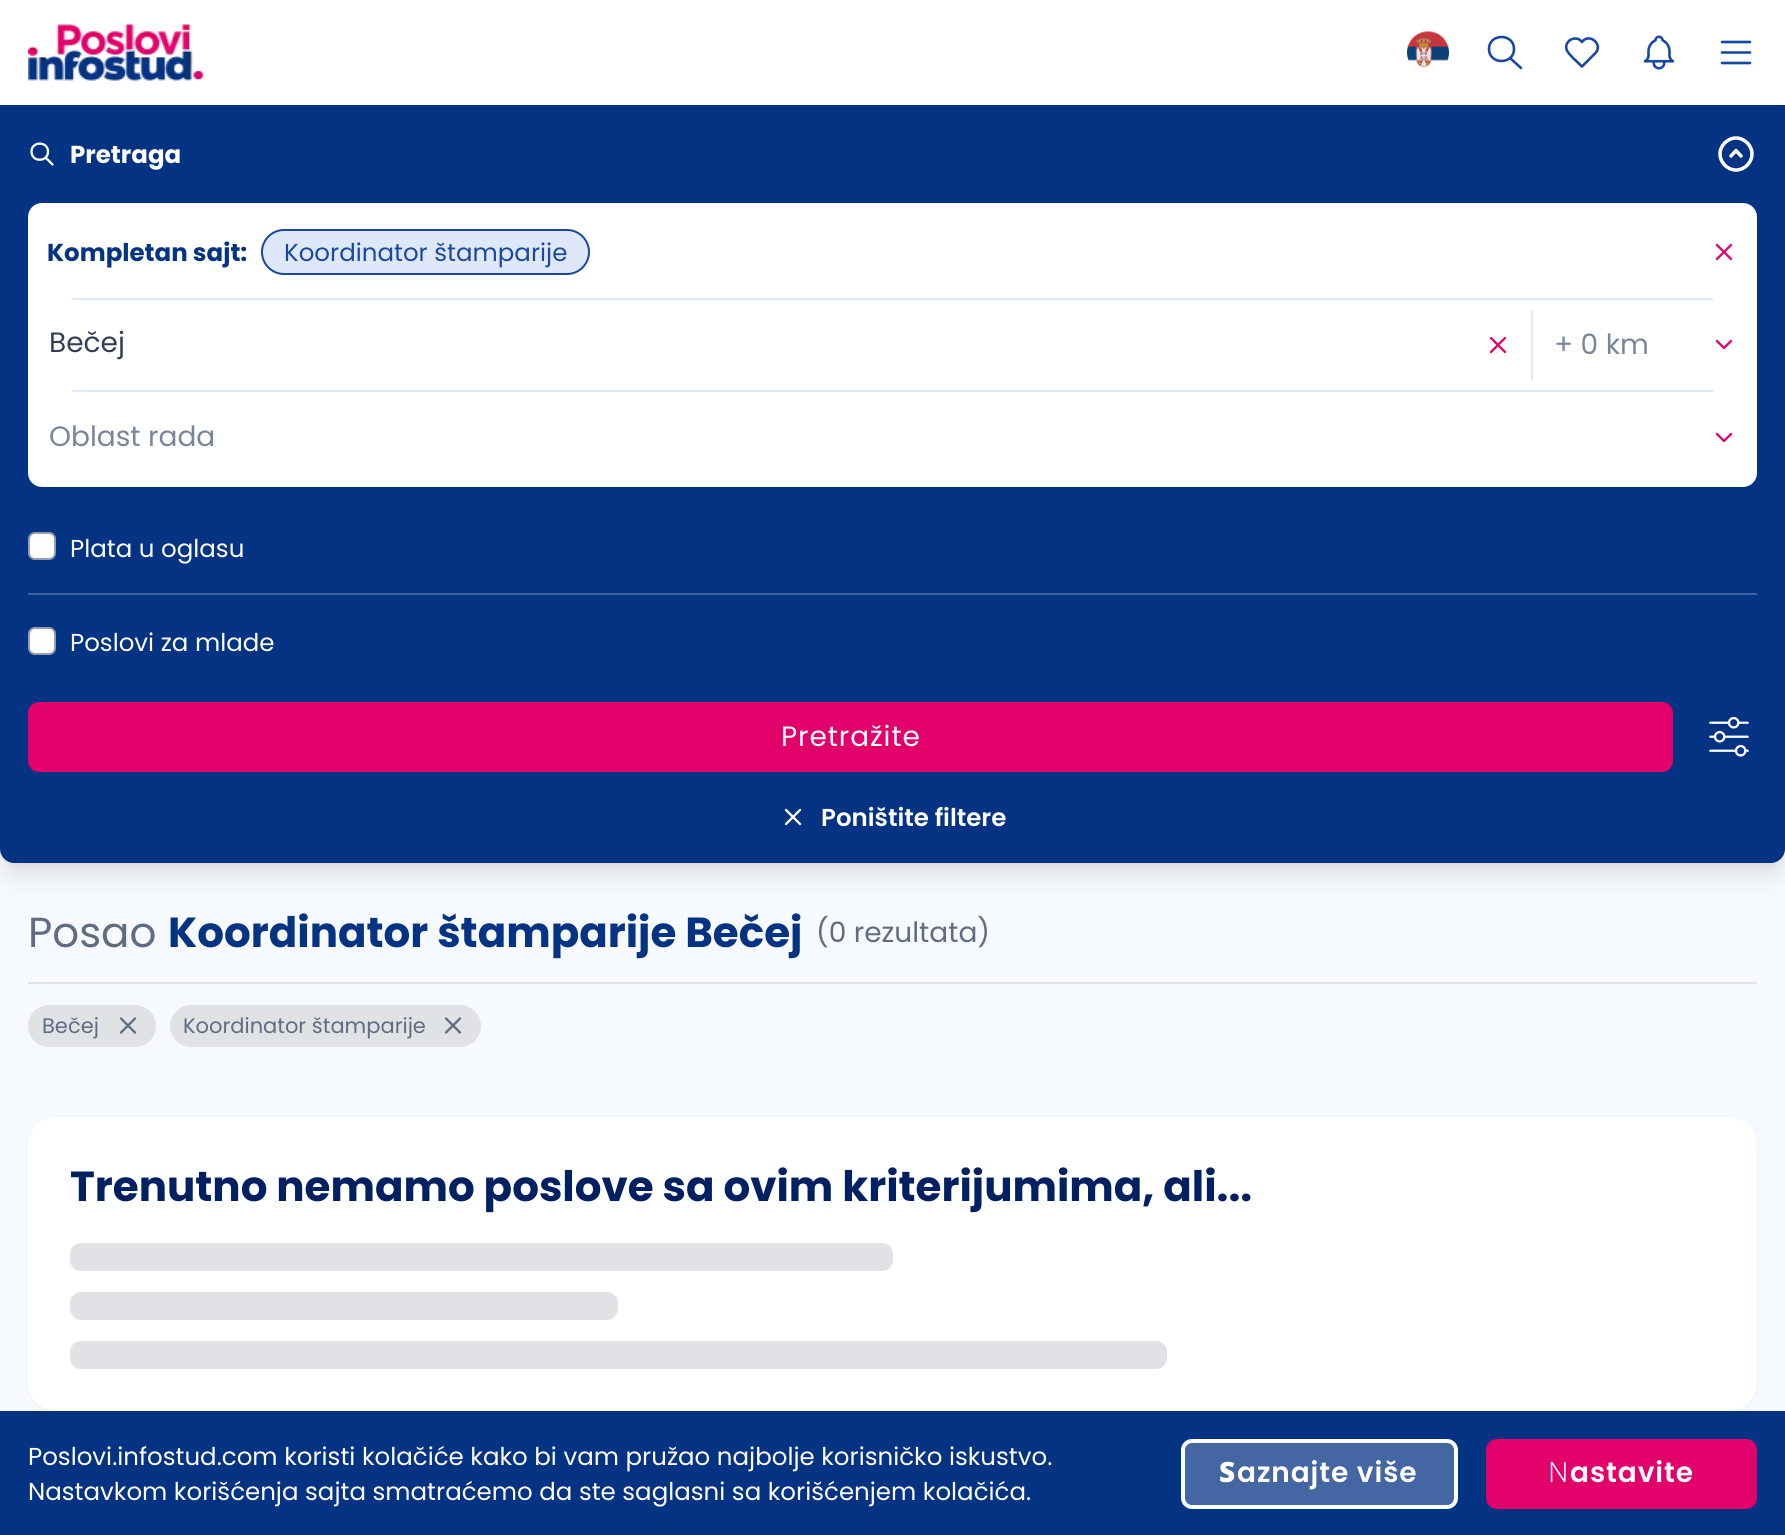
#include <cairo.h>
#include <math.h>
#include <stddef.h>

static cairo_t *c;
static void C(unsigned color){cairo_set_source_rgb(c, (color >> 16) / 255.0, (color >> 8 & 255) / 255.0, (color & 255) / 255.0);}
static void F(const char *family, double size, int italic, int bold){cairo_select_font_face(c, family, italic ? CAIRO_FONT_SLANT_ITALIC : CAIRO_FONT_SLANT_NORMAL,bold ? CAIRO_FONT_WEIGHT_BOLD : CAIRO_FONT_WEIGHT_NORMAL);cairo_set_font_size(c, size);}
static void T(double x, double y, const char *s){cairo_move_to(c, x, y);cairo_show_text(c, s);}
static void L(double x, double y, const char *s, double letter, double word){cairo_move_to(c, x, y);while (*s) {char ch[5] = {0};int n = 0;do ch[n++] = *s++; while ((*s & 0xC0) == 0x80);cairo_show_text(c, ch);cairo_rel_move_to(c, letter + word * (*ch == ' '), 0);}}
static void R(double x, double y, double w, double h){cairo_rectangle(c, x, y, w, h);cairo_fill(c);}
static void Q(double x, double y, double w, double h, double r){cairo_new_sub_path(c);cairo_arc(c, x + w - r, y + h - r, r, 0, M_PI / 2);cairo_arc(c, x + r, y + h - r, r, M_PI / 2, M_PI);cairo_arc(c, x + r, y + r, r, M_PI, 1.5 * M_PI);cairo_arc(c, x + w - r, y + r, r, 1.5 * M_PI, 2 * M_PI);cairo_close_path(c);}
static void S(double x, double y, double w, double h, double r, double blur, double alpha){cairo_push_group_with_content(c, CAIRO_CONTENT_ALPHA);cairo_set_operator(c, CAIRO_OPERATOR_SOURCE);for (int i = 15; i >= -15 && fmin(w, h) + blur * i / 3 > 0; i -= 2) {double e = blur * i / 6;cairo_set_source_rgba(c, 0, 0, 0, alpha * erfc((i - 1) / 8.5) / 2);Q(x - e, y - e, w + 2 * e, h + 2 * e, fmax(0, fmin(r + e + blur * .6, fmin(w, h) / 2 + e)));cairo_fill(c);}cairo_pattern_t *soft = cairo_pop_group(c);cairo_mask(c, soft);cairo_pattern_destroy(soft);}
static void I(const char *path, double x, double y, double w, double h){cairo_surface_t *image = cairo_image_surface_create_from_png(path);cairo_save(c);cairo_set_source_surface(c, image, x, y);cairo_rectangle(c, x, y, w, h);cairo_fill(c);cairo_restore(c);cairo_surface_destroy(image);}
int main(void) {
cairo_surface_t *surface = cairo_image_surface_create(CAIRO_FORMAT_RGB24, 1785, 1535);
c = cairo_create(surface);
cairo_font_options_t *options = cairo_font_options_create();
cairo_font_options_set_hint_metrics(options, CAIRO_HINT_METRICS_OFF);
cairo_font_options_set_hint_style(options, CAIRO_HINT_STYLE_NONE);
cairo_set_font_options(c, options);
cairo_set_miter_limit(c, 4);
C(0xf6f9fd);
cairo_paint(c);
C(0x000000);
S(7,119,1771,744,7,5,.1);
S(5,128,1775,747,9,13,.1);
C(0x053384);
cairo_new_path(c);
cairo_move_to(c,0,105);
cairo_line_to(c,1785,105);
cairo_line_to(c,1785,849);
cairo_curve_to(c,1785,856.5,1778.5,863,1771,863);
cairo_line_to(c,14,863);
cairo_curve_to(c,6.5,863,0,856.5,0,849);
cairo_close_path(c);
cairo_fill(c);
cairo_new_path(c);
cairo_move_to(c,31.5,151.5);
cairo_curve_to(c,31.5,162.5,48,162.5,48,151.5);
cairo_curve_to(c,48,141,31.5,141,31.5,151.5);
cairo_move_to(c,52.5,164.5);
cairo_line_to(c,45.5,157.5);
C(0xffffff);
cairo_set_line_width(c,2.3);
cairo_set_line_cap(c,CAIRO_LINE_CAP_ROUND);
cairo_set_line_join(c,CAIRO_LINE_JOIN_ROUND);
cairo_stroke(c);
cairo_new_path(c);
cairo_move_to(c,1731,156);
cairo_line_to(c,1736,150.5);
cairo_line_to(c,1741,156);
cairo_move_to(c,1736,170);
cairo_curve_to(c,1744.5,170,1752,162.5,1752,154);
cairo_curve_to(c,1752,145.5,1744.5,138,1736,138);
cairo_curve_to(c,1727.5,138,1720,145.5,1720,154);
cairo_curve_to(c,1720,162.5,1727.5,170,1736,170);
cairo_close_path(c);
cairo_set_line_width(c,3.5);
cairo_stroke(c);
C(0x002062);
S(0,14,1785,105,0,21,.06);
C(0xffffff);
R(0,0,1785,105);
I("1.png",28,24,175,57);
I("2.png",1407,31,42,37);
cairo_new_path(c);
cairo_move_to(c,1489,49);
cairo_curve_to(c,1489,65,1514,65,1514,49);
cairo_curve_to(c,1514,33,1489,33,1489,49);
cairo_move_to(c,1521,68);
cairo_line_to(c,1510,58);
C(0x1847a4);
cairo_set_line_width(c,2.6);
cairo_stroke(c);
cairo_new_path(c);
cairo_move_to(c,1595,53.5);
cairo_line_to(c,1582,66.5);
cairo_line_to(c,1573,58);
cairo_curve_to(c,1571.5,56,1569,54,1567.5,51.5);
cairo_curve_to(c,1562,42,1575.5,33.5,1582,42);
cairo_curve_to(c,1589.5,32,1604,45,1595,53.5);
cairo_stroke(c);
I("3.png",1643,35,32,35);
cairo_new_path(c);
cairo_move_to(c,1722,42);
cairo_line_to(c,1750,42);
cairo_move_to(c,1722,52.5);
cairo_line_to(c,1750,52.5);
cairo_move_to(c,1722,63);
cairo_line_to(c,1750,63);
cairo_stroke(c);
F("Poppins",24.5,0,1);
C(0xffffff);
T(70,163,"Pretraga");
Q(28,203,1729,284,14);
cairo_fill(c);
C(0x053384);
T(47,261,"Kompletan sajt:");
C(0xdfe8f9);
Q(262,230,327,44,22);
cairo_fill_preserve(c);
C(0x1847a4);
cairo_set_line_width(c,2);
cairo_set_line_cap(c,CAIRO_LINE_CAP_BUTT);
cairo_set_line_join(c,CAIRO_LINE_JOIN_MITER);
cairo_stroke(c);
F("Poppins",24.5,0,0);
T(284,261,"Koordinator štamparije");
cairo_new_path(c);
cairo_move_to(c,1731,245);
cairo_line_to(c,1717,259);
cairo_move_to(c,1717,245);
cairo_line_to(c,1731,259);
C(0xe2016a);
cairo_set_line_width(c,2.3);
cairo_set_line_cap(c,CAIRO_LINE_CAP_ROUND);
cairo_set_line_join(c,CAIRO_LINE_JOIN_ROUND);
cairo_stroke(c);
C(0xdfe8f9);
R(72,298,1641,2);
F("Poppins",28,0,0);
C(0x323e52);
T(49,352,"Bečej");
cairo_new_path(c);
cairo_move_to(c,1505,338);
cairo_line_to(c,1491,352);
cairo_move_to(c,1491,338);
cairo_line_to(c,1505,352);
C(0xe2016a);
cairo_stroke(c);
C(0xdfe8f9);
R(1531,310,2,70);
C(0x79869a);
T(1554,354,"+ 0 km");
cairo_new_path(c);
cairo_move_to(c,1717,341);
cairo_line_to(c,1724,348);
cairo_line_to(c,1731,341);
C(0xe2016a);
cairo_stroke(c);
C(0xdfe8f9);
R(72,390,1641,2);
C(0x79869a);
T(49,446,"Oblast rada");
cairo_new_path(c);
cairo_move_to(c,1717,434);
cairo_line_to(c,1724,441);
cairo_line_to(c,1731,434);
C(0xe2016a);
cairo_stroke(c);
C(0x3c60a1);
R(28,593,1729,2);
C(0xffffff);
Q(29,533,26,26,6);
cairo_fill_preserve(c);
C(0x939dae);
cairo_set_line_width(c,2);
cairo_set_line_cap(c,CAIRO_LINE_CAP_BUTT);
cairo_set_line_join(c,CAIRO_LINE_JOIN_MITER);
cairo_stroke(c);
F("Poppins",24.5,0,0);
C(0xffffff);
T(70,557,"Plata u oglasu");
Q(29,628,26,26,6);
cairo_fill_preserve(c);
C(0x939dae);
cairo_stroke(c);
C(0xffffff);
T(70,651,"Poslovi za mlade");
C(0xe2016a);
Q(28,702,1645,70,11);
cairo_fill(c);
F("Poppins",28,0,0);
C(0xffffff);
L(781,746,"Pretražite",.9,0);
I("4.png",1709,716,40,41);
cairo_new_path(c);
cairo_move_to(c,800,810);
cairo_line_to(c,786,824);
cairo_move_to(c,786,810);
cairo_line_to(c,800,824);
cairo_set_line_width(c,2.3);
cairo_set_line_cap(c,CAIRO_LINE_CAP_ROUND);
cairo_set_line_join(c,CAIRO_LINE_JOIN_ROUND);
cairo_stroke(c);
F("Poppins SemiBold",24.5,0,0);
T(821,826,"Poništite filtere");
C(0xe0e2e6);
R(28,982,1729,2);
F("Poppins",42,0,0);
C(0x5f6c81);
T(28,947,"Posao");
F("Poppins",42,0,1);
C(0x053384);
T(168,947,"Koordinator štamparije Bečej");
F("Poppins",28,0,0);
C(0x5f6c81);
T(816,942,"(0 rezultata)");
C(0xe0e2e6);
Q(28,1005,128,42,21);
cairo_fill(c);
F("Poppins",21,0,0);
C(0x5f6c81);
T(42,1033,"Bečej");
cairo_new_path(c);
cairo_move_to(c,135,1018.5);
cairo_line_to(c,121,1032.5);
cairo_move_to(c,121,1018.5);
cairo_line_to(c,135,1032.5);
cairo_stroke(c);
C(0xe0e2e6);
Q(170,1005,311,42,21);
cairo_fill(c);
C(0x5f6c81);
T(183,1033,"Koordinator štamparije");
cairo_new_path(c);
cairo_move_to(c,460,1018.5);
cairo_line_to(c,446,1032.5);
cairo_move_to(c,446,1018.5);
cairo_line_to(c,460,1032.5);
cairo_stroke(c);
C(0x000000);
S(28,1118,1729,294,28,2,.05);
C(0xffffff);
Q(28,1117,1729,294,28);
cairo_fill(c);
F("Poppins",42,0,1);
C(0x002062);
T(70,1201,"Trenutno nemamo poslove sa ovim kriterijumima, ali...");
C(0xe0e2e6);
Q(70,1243,823,28,11);
cairo_fill(c);
Q(70,1292,548,28,11);
cairo_fill(c);
Q(70,1341,1097,28,11);
cairo_fill(c);
C(0x053384);
R(0,1411,1785,124);
F("Poppins",24.5,0,0);
C(0xffffff);
T(28,1465,"Poslovi.infostud.com koristi kolačiće kako bi vam pružao najbolje korisničko iskustvo.");
T(28,1500,"Nastavkom korišćenja sajta smatraćemo da ste saglasni sa korišćenjem kolačića.");
C(0x4466a3);
Q(1183,1441,273,66,9);
cairo_fill_preserve(c);
C(0xffffff);
cairo_set_line_width(c,4);
cairo_set_line_cap(c,CAIRO_LINE_CAP_BUTT);
cairo_set_line_join(c,CAIRO_LINE_JOIN_MITER);
cairo_stroke(c);
F("Noto Sans Black",28,0,0);
L(1219,1482,"S",.9,0);
F("Poppins SemiBold",28,0,0);
L(1237,1482,"aznajte više",.9,0);
C(0xe2016a);
Q(1486,1439,271,70,11);
cairo_fill(c);
F("Noto Sans Light",28,0,0);
C(0xffffff);
L(1548,1482,"N",.9,0);
F("Poppins SemiBold",28,0,0);
L(1570,1482,"astavite",.9,0);
cairo_surface_write_to_png(surface, "o.png");
cairo_font_options_destroy(options);
cairo_destroy(c);
cairo_surface_destroy(surface);
return 0;
}
